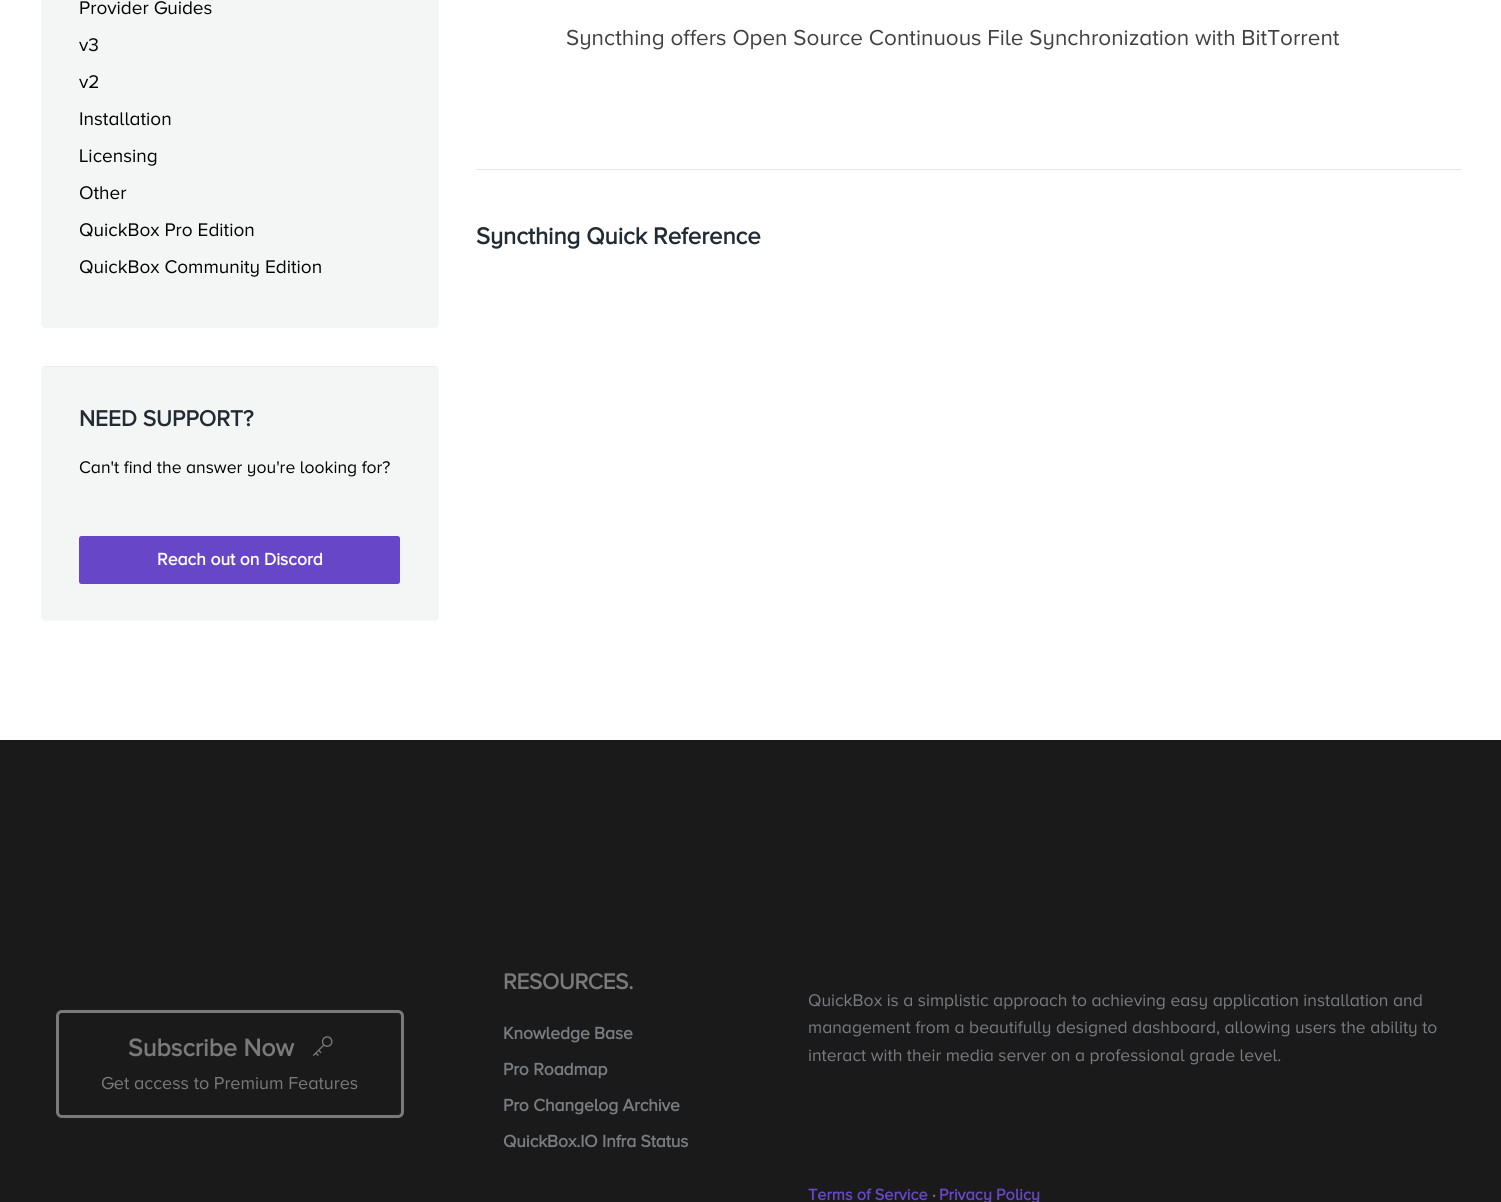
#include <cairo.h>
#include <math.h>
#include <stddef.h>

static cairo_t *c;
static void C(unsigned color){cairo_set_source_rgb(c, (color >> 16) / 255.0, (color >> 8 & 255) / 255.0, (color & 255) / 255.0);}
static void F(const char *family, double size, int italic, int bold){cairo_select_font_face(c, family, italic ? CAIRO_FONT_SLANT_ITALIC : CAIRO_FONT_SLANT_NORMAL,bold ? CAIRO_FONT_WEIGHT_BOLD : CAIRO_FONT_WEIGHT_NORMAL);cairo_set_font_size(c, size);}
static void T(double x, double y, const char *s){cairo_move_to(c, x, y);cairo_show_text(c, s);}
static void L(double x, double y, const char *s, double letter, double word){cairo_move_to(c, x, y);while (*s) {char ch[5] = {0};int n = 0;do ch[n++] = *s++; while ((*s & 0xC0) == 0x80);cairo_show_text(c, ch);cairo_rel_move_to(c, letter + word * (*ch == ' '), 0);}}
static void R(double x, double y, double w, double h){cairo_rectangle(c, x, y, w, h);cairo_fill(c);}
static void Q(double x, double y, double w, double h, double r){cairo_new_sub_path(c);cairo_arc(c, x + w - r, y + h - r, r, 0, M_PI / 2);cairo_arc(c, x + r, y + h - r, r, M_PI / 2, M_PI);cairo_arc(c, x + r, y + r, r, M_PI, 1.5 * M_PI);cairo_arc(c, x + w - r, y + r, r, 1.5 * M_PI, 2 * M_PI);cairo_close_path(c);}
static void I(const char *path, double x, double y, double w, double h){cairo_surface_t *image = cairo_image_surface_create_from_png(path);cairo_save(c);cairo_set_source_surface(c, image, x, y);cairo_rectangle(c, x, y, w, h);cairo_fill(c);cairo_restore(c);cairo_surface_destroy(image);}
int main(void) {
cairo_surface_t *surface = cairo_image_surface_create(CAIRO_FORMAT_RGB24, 1501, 1202);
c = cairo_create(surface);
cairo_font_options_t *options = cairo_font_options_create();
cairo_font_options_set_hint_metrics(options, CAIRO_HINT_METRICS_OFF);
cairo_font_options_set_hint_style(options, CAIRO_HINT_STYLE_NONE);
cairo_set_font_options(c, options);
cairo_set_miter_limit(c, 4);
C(0xffffff);
cairo_paint(c);
C(0xf4f5f5);
Q(41,-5,398,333,5);
cairo_fill(c);
F("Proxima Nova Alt",19,0,0);
C(0x000000);
T(79,14,"Provider Guides");
T(79,51,"v3");
T(79,88,"v2");
T(79,125,"Installation");
T(79,162,"Licensing");
T(79,199,"Other");
T(79,236,"QuickBox Pro Edition");
T(79,273,"QuickBox Community Edition");
C(0xf4f5f5);
Q(41,366,398,255,5);
cairo_fill(c);
C(0xebebeb);
R(44,366,392,1);
F("Proxima Nova Alt",22.75,0,1);
C(0x222b34);
T(79,426,"NEED SUPPORT?");
F("Proxima Nova Alt",17.5,0,0);
C(0x000000);
T(79,473,"Can't find the answer you're looking for?");
C(0x6747c7);
Q(79,536,321,48,2.5);
cairo_fill(c);
F("Proxima Nova Alt",17.5,0,1);
C(0xffffff);
T(157,565,"Reach out on Discord");
C(0xe6e6e6);
R(476,169,985,1);
F("Proxima Nova Alt",22.5,0,0);
C(0x404040);
T(566,45,"Syncthing offers Open Source Continuous File Synchronization with BitTorrent");
F("Proxima Nova Alt",24,0,1);
C(0x222b34);
L(476,244,"Syncthing Quick Reference",-.1,0);
C(0x1a1a1a);
R(0,740,1501,462);
Q(57.5,1011.5,345,105,4.5);
C(0x7a7a7a);
cairo_set_line_width(c,3);
cairo_stroke(c);
F("Proxima Nova Alt",25,0,1);
T(128,1056,"Subscribe Now");
I("1.png",312,1036,21,20);
F("Proxima Nova Alt",18,0,0);
T(101,1089,"Get access to Premium Features");
F("Proxima Nova Alt",22.5,0,1);
L(503,989,"RESOURCES.",-.25,0);
F("Proxima Nova Alt",17.5,0,1);
C(0x797c80);
L(503,1039,"Knowledge Base",-.1,0);
L(503,1075,"Pro Roadmap",-.1,0);
L(503,1111,"Pro Changelog Archive",-.1,0);
L(503,1147,"QuickBox.IO Infra Status",-.1,0);
F("Proxima Nova Alt",17.5,0,0);
T(808,1006,"QuickBox is a simplistic approach to achieving easy application installation and");
T(808,1033,"management from a beautifully designed dashboard, allowing users the ability to");
T(808,1061,"interact with their media server on a professional grade level.");
F("Proxima Nova Alt",16.25,0,1);
C(0x6747c7);
T(808,1200,"Terms of Service");
C(0x797c80);
T(932,1200,"·");
C(0x6747c7);
T(939,1200,"Privacy Policy");
cairo_surface_write_to_png(surface, "o.png");
cairo_font_options_destroy(options);
cairo_destroy(c);
cairo_surface_destroy(surface);
return 0;
}
